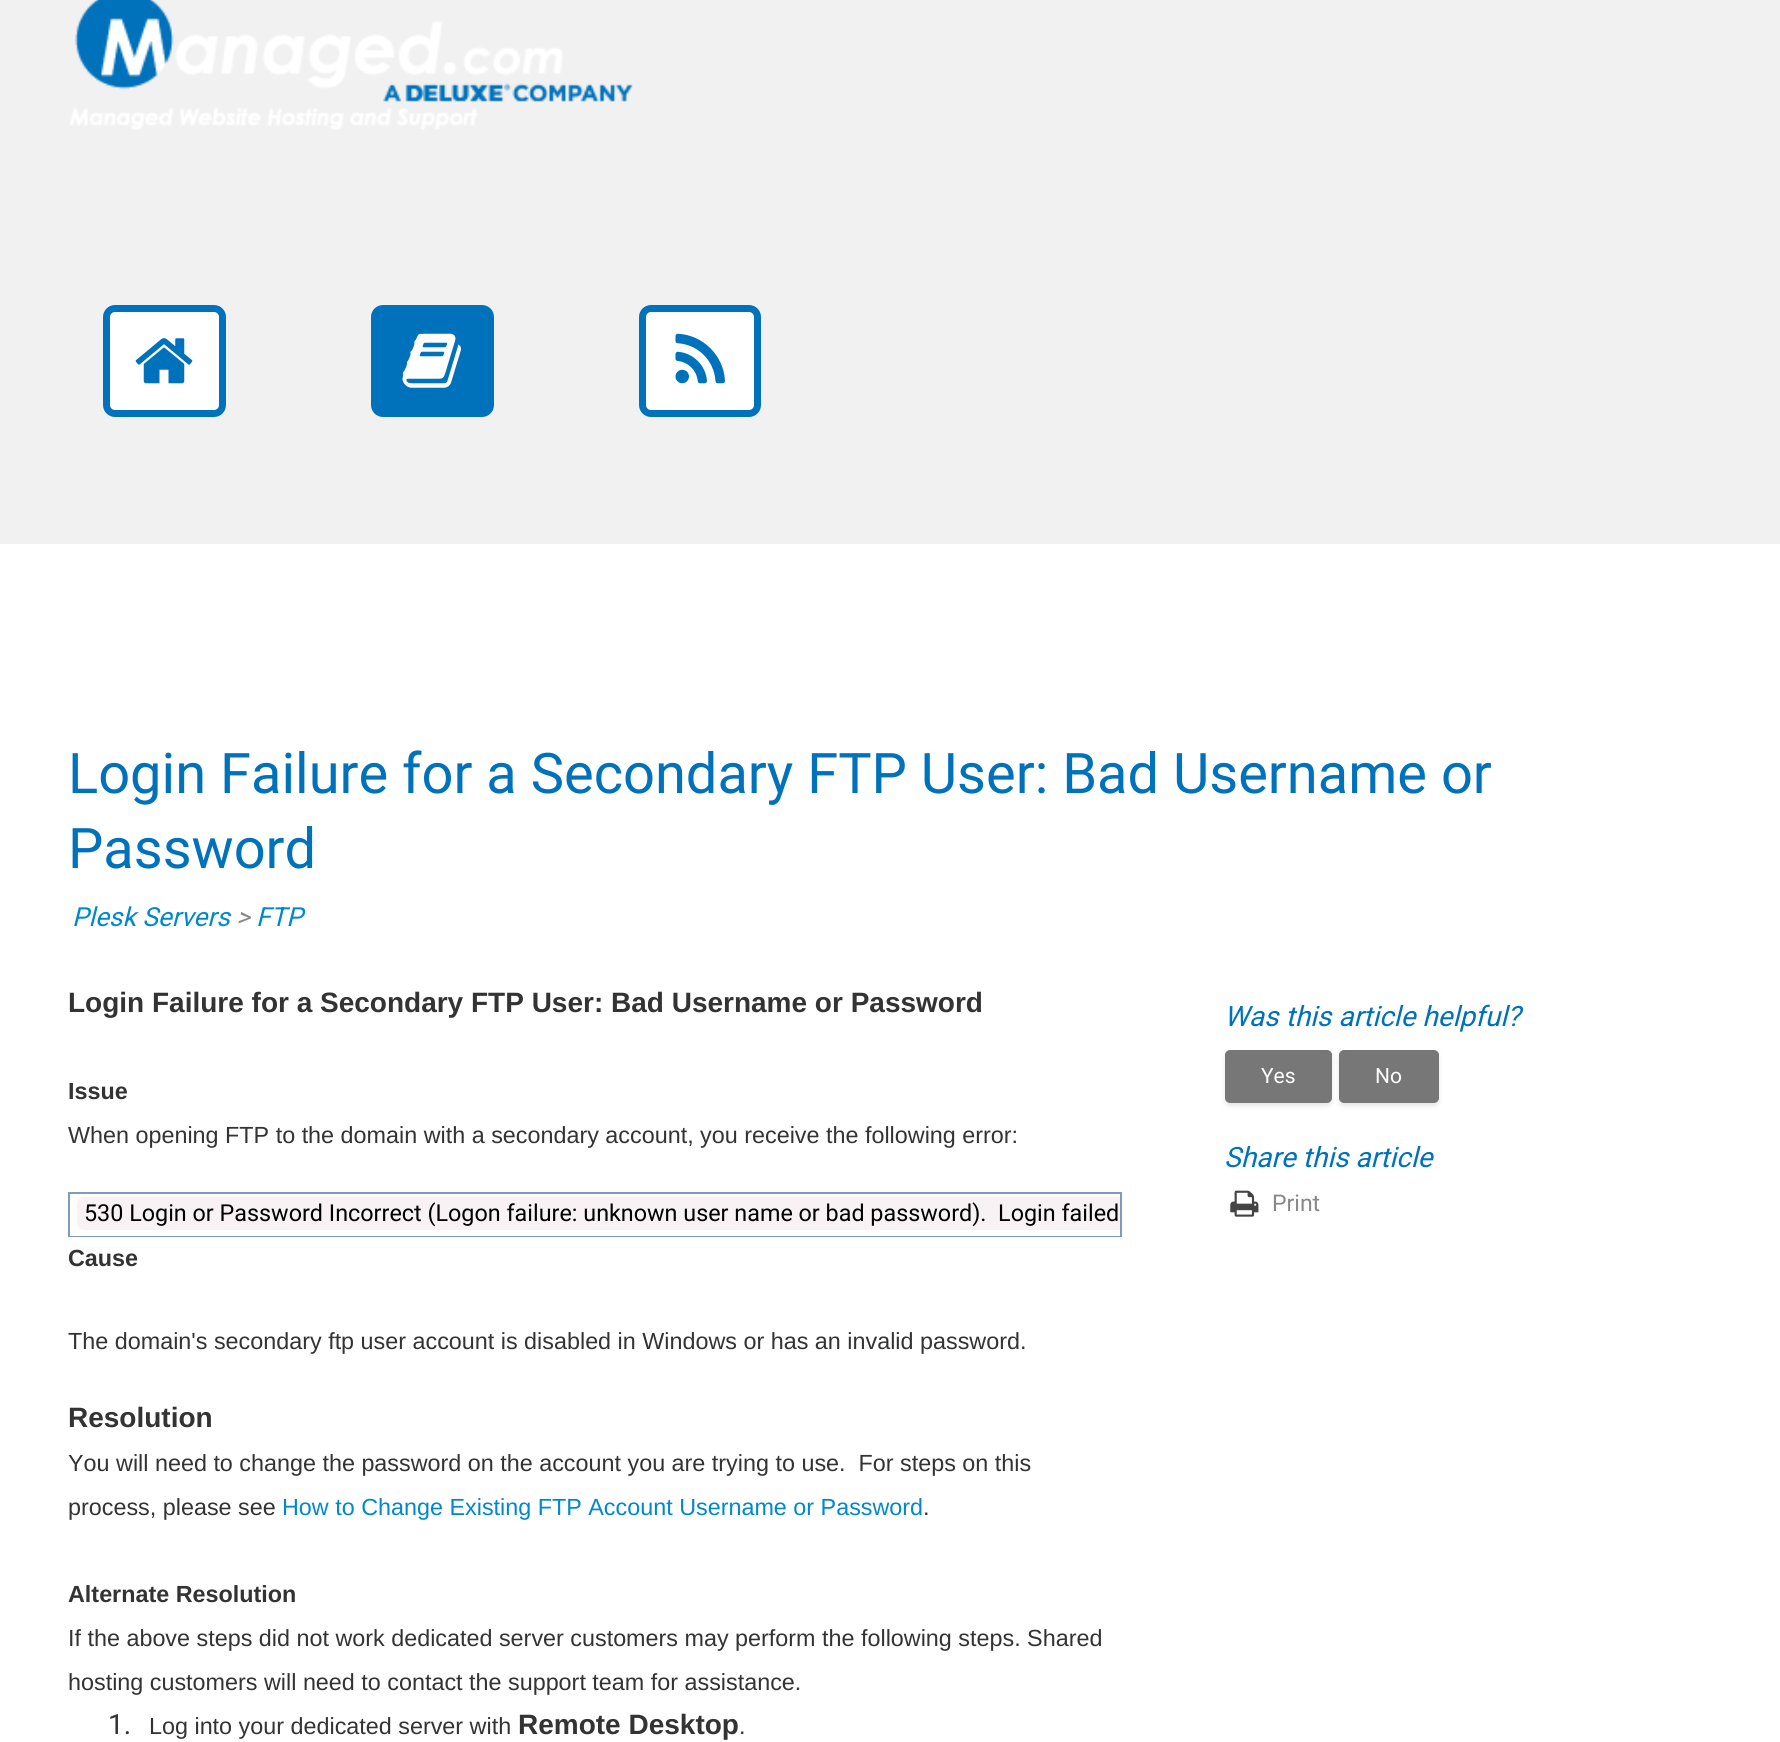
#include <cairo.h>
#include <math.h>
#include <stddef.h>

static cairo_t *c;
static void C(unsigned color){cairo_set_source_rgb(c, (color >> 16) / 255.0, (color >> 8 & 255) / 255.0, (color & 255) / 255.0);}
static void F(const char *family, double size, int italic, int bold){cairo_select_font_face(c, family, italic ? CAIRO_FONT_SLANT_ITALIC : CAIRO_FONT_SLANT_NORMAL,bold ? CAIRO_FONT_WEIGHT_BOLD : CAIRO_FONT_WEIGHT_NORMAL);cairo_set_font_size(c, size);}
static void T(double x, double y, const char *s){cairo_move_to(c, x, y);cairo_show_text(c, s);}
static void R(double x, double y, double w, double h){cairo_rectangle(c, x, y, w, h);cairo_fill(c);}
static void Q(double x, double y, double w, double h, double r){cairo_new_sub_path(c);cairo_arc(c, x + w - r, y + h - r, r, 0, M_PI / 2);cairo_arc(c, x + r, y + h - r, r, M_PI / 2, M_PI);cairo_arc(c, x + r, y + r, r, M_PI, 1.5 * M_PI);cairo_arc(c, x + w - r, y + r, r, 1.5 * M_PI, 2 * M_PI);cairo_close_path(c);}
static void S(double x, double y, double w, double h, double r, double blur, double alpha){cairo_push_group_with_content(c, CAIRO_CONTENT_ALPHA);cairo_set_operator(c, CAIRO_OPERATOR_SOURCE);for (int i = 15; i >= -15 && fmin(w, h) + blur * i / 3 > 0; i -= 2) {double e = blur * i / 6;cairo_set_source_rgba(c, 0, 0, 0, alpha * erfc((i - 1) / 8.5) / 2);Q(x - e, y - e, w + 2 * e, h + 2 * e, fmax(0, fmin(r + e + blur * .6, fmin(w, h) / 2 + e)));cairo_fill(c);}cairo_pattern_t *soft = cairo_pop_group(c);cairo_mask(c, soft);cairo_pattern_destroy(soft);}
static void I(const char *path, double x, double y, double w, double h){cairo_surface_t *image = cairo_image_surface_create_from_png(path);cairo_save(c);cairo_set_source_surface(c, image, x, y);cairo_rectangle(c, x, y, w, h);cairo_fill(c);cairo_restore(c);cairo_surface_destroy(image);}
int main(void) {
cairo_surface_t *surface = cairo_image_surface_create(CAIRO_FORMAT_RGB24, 1780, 1742);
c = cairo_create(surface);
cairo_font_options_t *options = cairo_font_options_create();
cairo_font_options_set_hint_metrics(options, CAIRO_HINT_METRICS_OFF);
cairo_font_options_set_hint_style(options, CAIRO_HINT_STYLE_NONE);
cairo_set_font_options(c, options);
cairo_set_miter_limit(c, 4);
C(0xffffff);
cairo_paint(c);
C(0xf1f1f1);
R(0,0,1780,544);
I("1.png",70,0,563,130);
C(0xffffff);
Q(106.5,308.5,116,105,8.5);
cairo_fill_preserve(c);
C(0x0072bb);
cairo_set_line_width(c,7);
cairo_stroke(c);
I("2.png",135,338,58,46);
C(0x0071bb);
Q(374.5,308.5,116,105,8.5);
cairo_fill_preserve(c);
C(0x0072bb);
cairo_stroke(c);
I("3.png",402,333,59,55);
C(0xffffff);
Q(642.5,308.5,115,105,8.5);
cairo_fill_preserve(c);
C(0x0072bb);
cairo_stroke(c);
I("4.png",675,333,50,51);
F("Roboto",56,0,0);
C(0x0071bb);
T(68,793,"Login Failure for a Secondary FTP User: Bad Username or");
T(68,868,"Password");
F("Roboto",26.25,1,0);
C(0x0088cc);
T(72,926,"Plesk Servers");
C(0x888888);
T(236,926,">");
C(0x0088cc);
T(256,926,"FTP");
F("Liberation Sans",28,0,1);
C(0x333333);
T(68,1012,"Login Failure for a Secondary FTP User: Bad Username or Password");
F("Liberation Sans",23.35,0,1);
T(68,1099,"Issue");
F("Liberation Sans",23.35,0,0);
T(68,1143,"When opening FTP to the domain with a secondary account, you receive the following error:");
cairo_rectangle(c,69,1193,1052,43);
C(0x7f9db9);
cairo_set_line_width(c,2);
cairo_stroke(c);
C(0xffffff);
R(70,1235,1050,1);
C(0xf9f2f4);
cairo_new_path(c);
cairo_move_to(c,84,1197);
cairo_line_to(c,1120,1197);
cairo_line_to(c,1120,1230);
cairo_line_to(c,84,1230);
cairo_curve_to(c,80,1230,77,1227,77,1223);
cairo_line_to(c,77,1204);
cairo_curve_to(c,77,1200,80,1197,84,1197);
cairo_close_path(c);
cairo_fill(c);
F("Roboto",23.35,0,0);
C(0x000000);
T(84,1221,"530 Login or Password Incorrect (Logon failure: unknown user name or bad password).  Login failed");
F("Liberation Sans",23.35,0,1);
C(0x333333);
T(68,1266,"Cause");
F("Liberation Sans",23.35,0,0);
T(68,1349,"The domain's secondary ftp user account is disabled in Windows or has an invalid password.");
F("Liberation Sans",28,0,1);
T(68,1427,"Resolution");
F("Liberation Sans",23.35,0,0);
T(68,1471,"You will need to change the password on the account you are trying to use.  For steps on this");
T(68,1515,"process, please see");
C(0x0088cc);
T(282,1515,"How to Change Existing FTP Account Username or Password");
C(0x333333);
T(923,1515,".");
F("Liberation Sans",23.35,0,1);
T(68,1602,"Alternate Resolution");
F("Liberation Sans",23.35,0,0);
T(68,1646,"If the above steps did not work dedicated server customers may perform the following steps. Shared");
T(68,1690,"hosting customers will need to contact the support team for assistance.");
F("Roboto",28,0,0);
T(108,1734,"1.");
F("Liberation Sans",23.35,0,0);
T(149,1734,"Log into your dedicated server with");
F("Liberation Sans",28,0,1);
T(518,1734,"Remote Desktop");
F("Liberation Sans",23.35,0,0);
T(739,1734,".");
F("Roboto",28,1,0);
C(0x0071bb);
T(1224,1026,"Was this article helpful?");
C(0x000000);
S(1225,1054,107,52,5,2.5,.1);
C(0x777777);
Q(1226,1051,105,51,4);
cairo_fill_preserve(c);
cairo_stroke(c);
F("Roboto",21,0,0);
C(0xffffff);
T(1261,1083,"Yes");
C(0x000000);
S(1339,1054,100,52,5,2.5,.1);
C(0x777777);
Q(1340,1051,98,51,4);
cairo_fill_preserve(c);
cairo_stroke(c);
C(0xffffff);
T(1375,1083,"No");
F("Roboto",28,1,0);
C(0x0071bb);
T(1224,1167,"Share this article");
I("5.png",1230,1190,29,27);
F("Roboto",23,0,0);
C(0x888888);
T(1272,1211,"Print");
cairo_surface_write_to_png(surface, "o.png");
cairo_font_options_destroy(options);
cairo_destroy(c);
cairo_surface_destroy(surface);
return 0;
}
